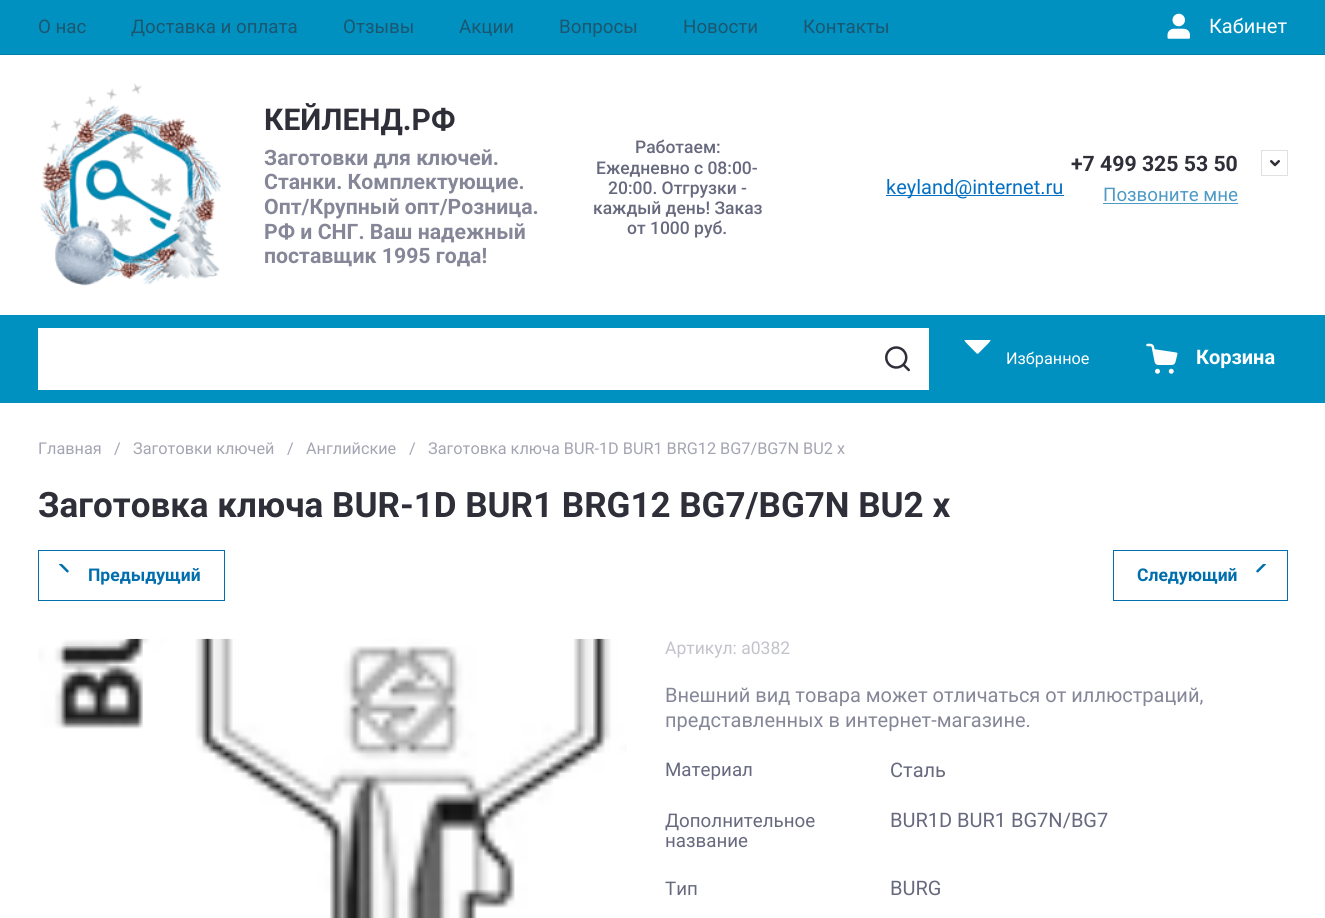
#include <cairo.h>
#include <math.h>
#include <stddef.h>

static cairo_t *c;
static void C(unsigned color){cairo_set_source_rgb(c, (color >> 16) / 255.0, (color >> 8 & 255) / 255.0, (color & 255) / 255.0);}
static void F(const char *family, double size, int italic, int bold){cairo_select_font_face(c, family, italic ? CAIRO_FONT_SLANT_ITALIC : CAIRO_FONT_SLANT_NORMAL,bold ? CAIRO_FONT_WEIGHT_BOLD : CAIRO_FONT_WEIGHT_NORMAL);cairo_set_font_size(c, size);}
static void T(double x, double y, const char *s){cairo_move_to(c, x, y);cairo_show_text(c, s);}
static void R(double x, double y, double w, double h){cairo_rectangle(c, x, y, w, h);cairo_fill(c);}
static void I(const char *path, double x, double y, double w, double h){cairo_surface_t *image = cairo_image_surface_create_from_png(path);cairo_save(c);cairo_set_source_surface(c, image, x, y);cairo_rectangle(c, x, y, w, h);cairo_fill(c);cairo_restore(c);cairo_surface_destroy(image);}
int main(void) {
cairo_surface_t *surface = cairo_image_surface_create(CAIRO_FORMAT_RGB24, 1325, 918);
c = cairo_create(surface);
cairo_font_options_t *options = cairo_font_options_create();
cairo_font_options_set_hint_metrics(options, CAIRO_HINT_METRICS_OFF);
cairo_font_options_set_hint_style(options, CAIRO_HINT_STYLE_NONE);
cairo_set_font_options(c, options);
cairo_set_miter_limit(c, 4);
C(0xffffff);
cairo_paint(c);
C(0x0191c1);
R(0,0,1325,54);
C(0x0180aa);
R(0,54,1325,1);
F("Roboto",18.75,0,0);
C(0x1c566f);
T(38,33,"О нас");
T(131,33,"Доставка и оплата");
T(343,33,"Отзывы");
T(459,33,"Акции");
T(559,33,"Вопросы");
T(683,33,"Новости");
T(803,33,"Контакты");
I("1.png",1167,13,23,26);
F("Roboto",20,0,0);
C(0xffffff);
T(1209,33,"Кабинет");
I("2.png",40,83,182,203);
F("Roboto",30,0,1);
C(0x2e2f38);
T(264,130,"КЕЙЛЕНД.РФ");
F("Roboto",21.25,0,1);
C(0x858798);
T(264,165,"Заготовки для ключей.");
T(264,189,"Станки. Комплектующие.");
T(264,214,"Опт/Крупный опт/Розница.");
T(264,239,"РФ и СНГ. Ваш надежный");
T(264,263,"поставщик 1995 года!");
F("Roboto Medium",17.5,0,0);
C(0x67697e);
T(635,153,"Работаем:");
T(596,174,"Ежедневно с 08:00-");
T(608,194,"20:00. Отгрузки -");
T(593,214,"каждый день! Заказ");
T(627,234,"от 1000 руб.");
C(0x0470c4);
R(886,195,178,1);
F("Roboto",20,0,0);
T(886,194,"keyland@internet.ru");
F("Roboto",21.25,0,1);
C(0x2e2f38);
T(1071,171,"+7 499 325 53 50");
F("Roboto",18.75,0,0);
C(0x4d9ac6);
T(1103,201,"Позвоните мне");
R(1103,203,135,1);
cairo_rectangle(c,1261.5,150.5,26,25);
C(0xe0e0e0);
cairo_set_line_width(c,1);
cairo_stroke(c);
I("3.png",1270,160,10,7);
C(0x0191c1);
R(0,315,1325,88);
C(0xffffff);
R(38,328,891,62);
I("4.png",885,346,25,26);
I("5.png",964,340,27,14);
F("Roboto",16.25,0,0);
T(1006,364,"Избранное");
I("6.png",1146,343,32,31);
F("Roboto",20,0,1);
T(1196,364,"Корзина");
F("Roboto",16.25,0,0);
C(0xa4a5b2);
T(38,454,"Главная");
T(114,454,"/");
T(133,454,"Заготовки ключей");
T(287,454,"/");
T(306,454,"Английские");
T(409,454,"/");
T(428,454,"Заготовка ключа BUR-1D BUR1 BRG12 BG7/BG7N BU2 x");
F("Roboto",35,0,1);
C(0x2e2f38);
T(38,517,"Заготовка ключа BUR-1D BUR1 BRG12 BG7/BG7N BU2 x");
cairo_rectangle(c,38.5,550.5,186,50);
C(0x016ead);
cairo_stroke(c);
I("7.png",58,564,11,9);
F("Roboto",17.5,0,1);
T(88,581,"Предыдущий");
cairo_rectangle(c,1113.5,550.5,174,50);
cairo_stroke(c);
T(1137,581,"Следующий");
I("8.png",1256,564,11,9);
I("9.png",38,638,589,280);
F("Roboto",17.5,0,0);
C(0xc2c3cb);
T(665,654,"Артикул: а0382");
F("Roboto",20,0,0);
C(0x858798);
T(665,702,"Внешний вид товара может отличаться от иллюстраций,");
T(665,727,"представленных в интернет-магазине.");
F("Roboto",18.75,0,0);
C(0x67697e);
T(665,776,"Материал");
F("Roboto",20,0,0);
T(890,777,"Сталь");
F("Roboto",18.75,0,0);
T(665,827,"Дополнительное");
T(665,847,"название");
F("Roboto",20,0,0);
T(890,827,"BUR1D BUR1 BG7N/BG7");
F("Roboto",18.75,0,0);
T(665,895,"Тип");
F("Roboto",20,0,0);
T(890,895,"BURG");
cairo_surface_write_to_png(surface, "o.png");
cairo_font_options_destroy(options);
cairo_destroy(c);
cairo_surface_destroy(surface);
return 0;
}
